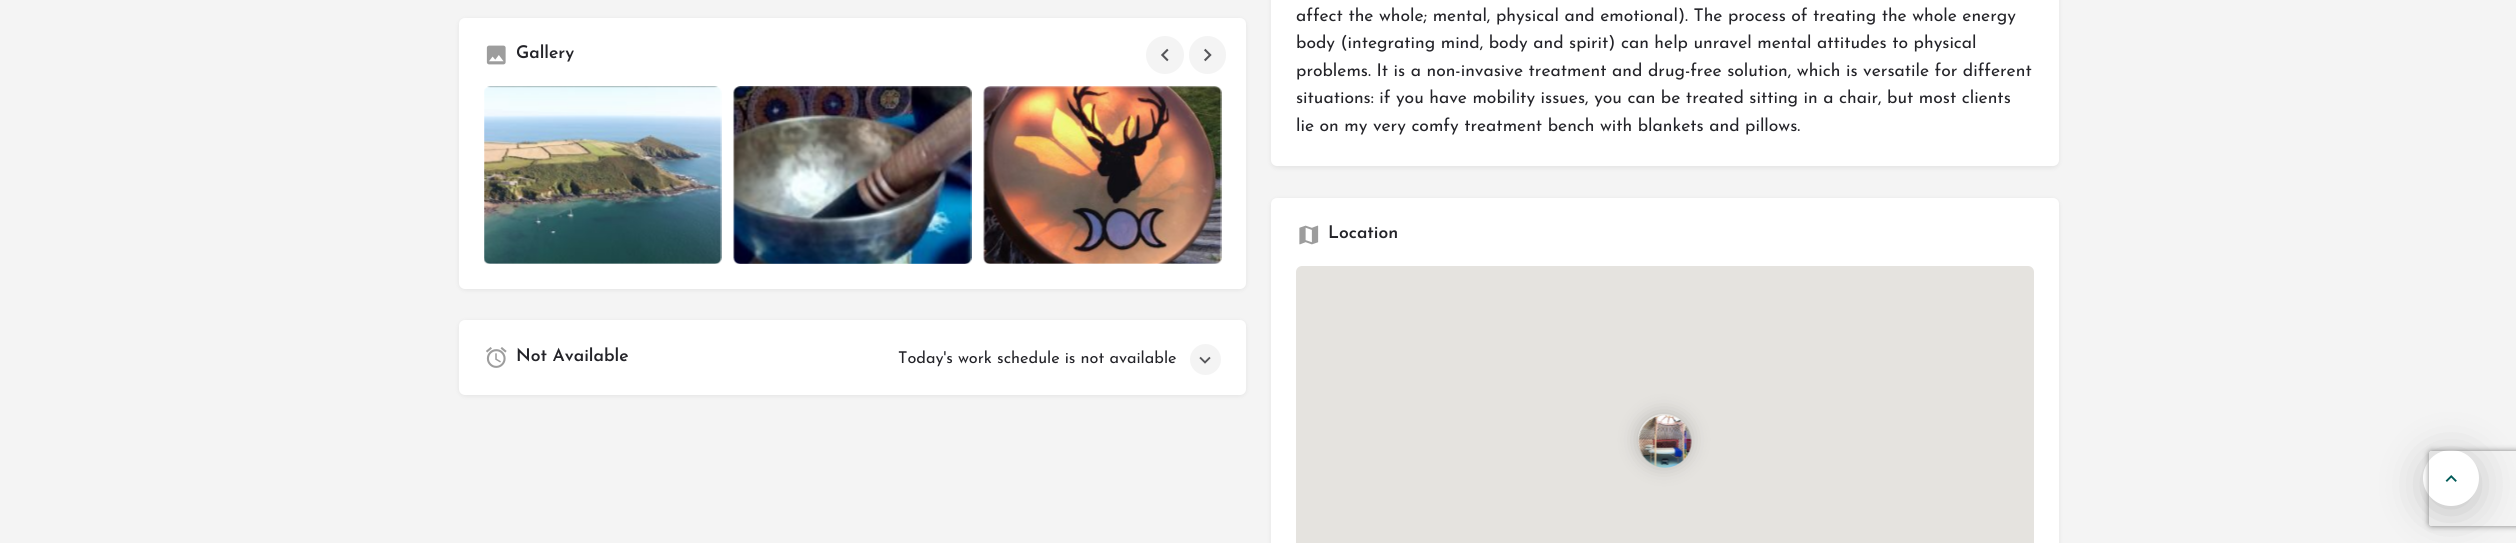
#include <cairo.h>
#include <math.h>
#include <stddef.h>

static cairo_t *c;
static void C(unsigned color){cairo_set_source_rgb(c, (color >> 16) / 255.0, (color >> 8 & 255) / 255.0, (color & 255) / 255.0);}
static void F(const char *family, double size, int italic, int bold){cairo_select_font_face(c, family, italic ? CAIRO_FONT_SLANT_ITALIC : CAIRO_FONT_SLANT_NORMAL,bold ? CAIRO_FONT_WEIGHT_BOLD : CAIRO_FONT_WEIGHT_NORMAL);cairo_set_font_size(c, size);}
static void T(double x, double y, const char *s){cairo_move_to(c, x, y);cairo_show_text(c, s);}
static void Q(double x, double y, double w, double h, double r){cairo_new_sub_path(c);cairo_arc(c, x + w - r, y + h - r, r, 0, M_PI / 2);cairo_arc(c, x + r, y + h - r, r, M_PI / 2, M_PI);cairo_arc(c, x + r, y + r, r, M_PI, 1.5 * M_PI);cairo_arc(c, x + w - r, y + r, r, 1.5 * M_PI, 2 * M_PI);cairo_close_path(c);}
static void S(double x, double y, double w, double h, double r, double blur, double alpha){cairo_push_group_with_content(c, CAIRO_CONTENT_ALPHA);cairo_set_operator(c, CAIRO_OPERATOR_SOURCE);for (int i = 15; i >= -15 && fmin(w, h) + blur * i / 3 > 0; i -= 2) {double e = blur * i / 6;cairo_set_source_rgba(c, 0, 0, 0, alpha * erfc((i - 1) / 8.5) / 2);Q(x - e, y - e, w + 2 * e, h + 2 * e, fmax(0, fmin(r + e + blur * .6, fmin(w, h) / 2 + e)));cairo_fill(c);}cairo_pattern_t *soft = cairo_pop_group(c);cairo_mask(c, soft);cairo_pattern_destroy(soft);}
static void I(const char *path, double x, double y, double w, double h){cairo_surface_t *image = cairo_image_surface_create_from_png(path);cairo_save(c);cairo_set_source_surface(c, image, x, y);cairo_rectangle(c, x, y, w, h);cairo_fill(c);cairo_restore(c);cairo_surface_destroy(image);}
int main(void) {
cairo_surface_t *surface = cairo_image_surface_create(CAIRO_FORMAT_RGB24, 2516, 543);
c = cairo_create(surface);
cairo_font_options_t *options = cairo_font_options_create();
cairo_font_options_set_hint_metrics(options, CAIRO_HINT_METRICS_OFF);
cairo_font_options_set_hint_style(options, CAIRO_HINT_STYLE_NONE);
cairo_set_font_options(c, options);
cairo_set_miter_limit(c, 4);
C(0xf4f4f4);
cairo_paint(c);
C(0x000000);
S(459,19,787,271,6,2.5,.07);
C(0xffffff);
Q(459,18,787,271,6);
cairo_fill(c);
I("1.png",486,45,20,20);
F("Josefin Sans SemiBold",17.5,0,0);
C(0x242429);
T(516,58,"Gallery");
C(0xf4f4f4);
cairo_new_path(c);
cairo_arc(c,1165,55,19,0,2 * M_PI);
cairo_fill(c);
I("2.png",1161,48,8,14);
Q(1189,36,37,38,18.5);
cairo_fill(c);
I("3.png",1204,48,8,14);
I("4.png",484,86,238,178);
I("5.png",733,86,239,178);
I("6.png",983,86,239,178);
C(0x000000);
S(1271,-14,788,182,6,2.5,.07);
C(0xffffff);
Q(1271,-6,788,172,6);
cairo_fill(c);
F("Josefin Sans",17.5,0,0);
C(0x242429);
T(1296,21,"affect the whole; mental, physical and emotional). The process of treating the whole energy");
T(1296,48,"body (integrating mind, body and spirit) can help unravel mental attitudes to physical");
T(1296,76,"problems. It is a non-invasive treatment and drug-free solution, which is versatile for different");
T(1296,103,"situations: if you have mobility issues, you can be treated sitting in a chair, but most clients");
T(1296,131,"lie on my very comfy treatment bench with blankets and pillows.");
C(0x000000);
S(1271,199,788,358,6,2.5,.07);
C(0xffffff);
Q(1271,198,788,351,6);
cairo_fill(c);
I("7.png",1299,225,20,20);
F("Josefin Sans SemiBold",17.5,0,0);
C(0x242429);
T(1328,238,"Location");
C(0xe5e3df);
Q(1296,266,738,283,6);
cairo_fill(c);
cairo_save(c);
cairo_set_fill_rule(c,CAIRO_FILL_RULE_EVEN_ODD);
cairo_new_path(c);
cairo_move_to(c,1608,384);
cairo_line_to(c,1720,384);
cairo_line_to(c,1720,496);
cairo_line_to(c,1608,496);
cairo_close_path(c);
cairo_move_to(c,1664,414);
cairo_curve_to(c,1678.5,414,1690,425.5,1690,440);
cairo_curve_to(c,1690,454.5,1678.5,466,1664,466);
cairo_curve_to(c,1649.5,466,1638,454.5,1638,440);
cairo_curve_to(c,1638,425.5,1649.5,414,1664,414);
cairo_close_path(c);
cairo_clip(c);
C(0x000000);
S(1638,414,52,52,26,9.5,.2);
cairo_restore(c);
I("8.png",1638,415,54,53);
C(0x000000);
S(459,321,787,75,6,2.5,.07);
C(0xffffff);
Q(459,320,787,75,6);
cairo_fill(c);
I("9.png",486,347,21,21);
C(0x242429);
T(516,361,"Not Available");
F("Josefin Sans",16.25,0,0);
T(898,363,"Today's work schedule is not available");
C(0xf4f4f4);
cairo_new_path(c);
cairo_arc(c,1205.5,359.5,15.5,0,2 * M_PI);
cairo_fill(c);
I("10.png",1199,356,12,8);
C(0x000000);
S(2423,456,56,57,28,20.5,.2);
C(0xffffff);
cairo_arc(c,2451,478,28,0,2 * M_PI);
cairo_fill(c);
I("11.png",2445,475,12,7);
cairo_save(c);
cairo_set_fill_rule(c,CAIRO_FILL_RULE_EVEN_ODD);
cairo_new_path(c);
cairo_move_to(c,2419,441);
cairo_line_to(c,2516,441);
cairo_line_to(c,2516,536);
cairo_line_to(c,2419,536);
cairo_close_path(c);
cairo_move_to(c,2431.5,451);
cairo_line_to(c,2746.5,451);
cairo_curve_to(c,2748,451,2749,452,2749,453.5);
cairo_line_to(c,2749,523.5);
cairo_curve_to(c,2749,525,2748,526,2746.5,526);
cairo_line_to(c,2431.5,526);
cairo_curve_to(c,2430,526,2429,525,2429,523.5);
cairo_line_to(c,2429,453.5);
cairo_curve_to(c,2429,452,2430,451,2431.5,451);
cairo_close_path(c);
cairo_clip(c);
C(0x808080);
S(2429,451,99,75,2.5,3,1);
cairo_restore(c);
cairo_surface_write_to_png(surface, "o.png");
cairo_font_options_destroy(options);
cairo_destroy(c);
cairo_surface_destroy(surface);
return 0;
}
